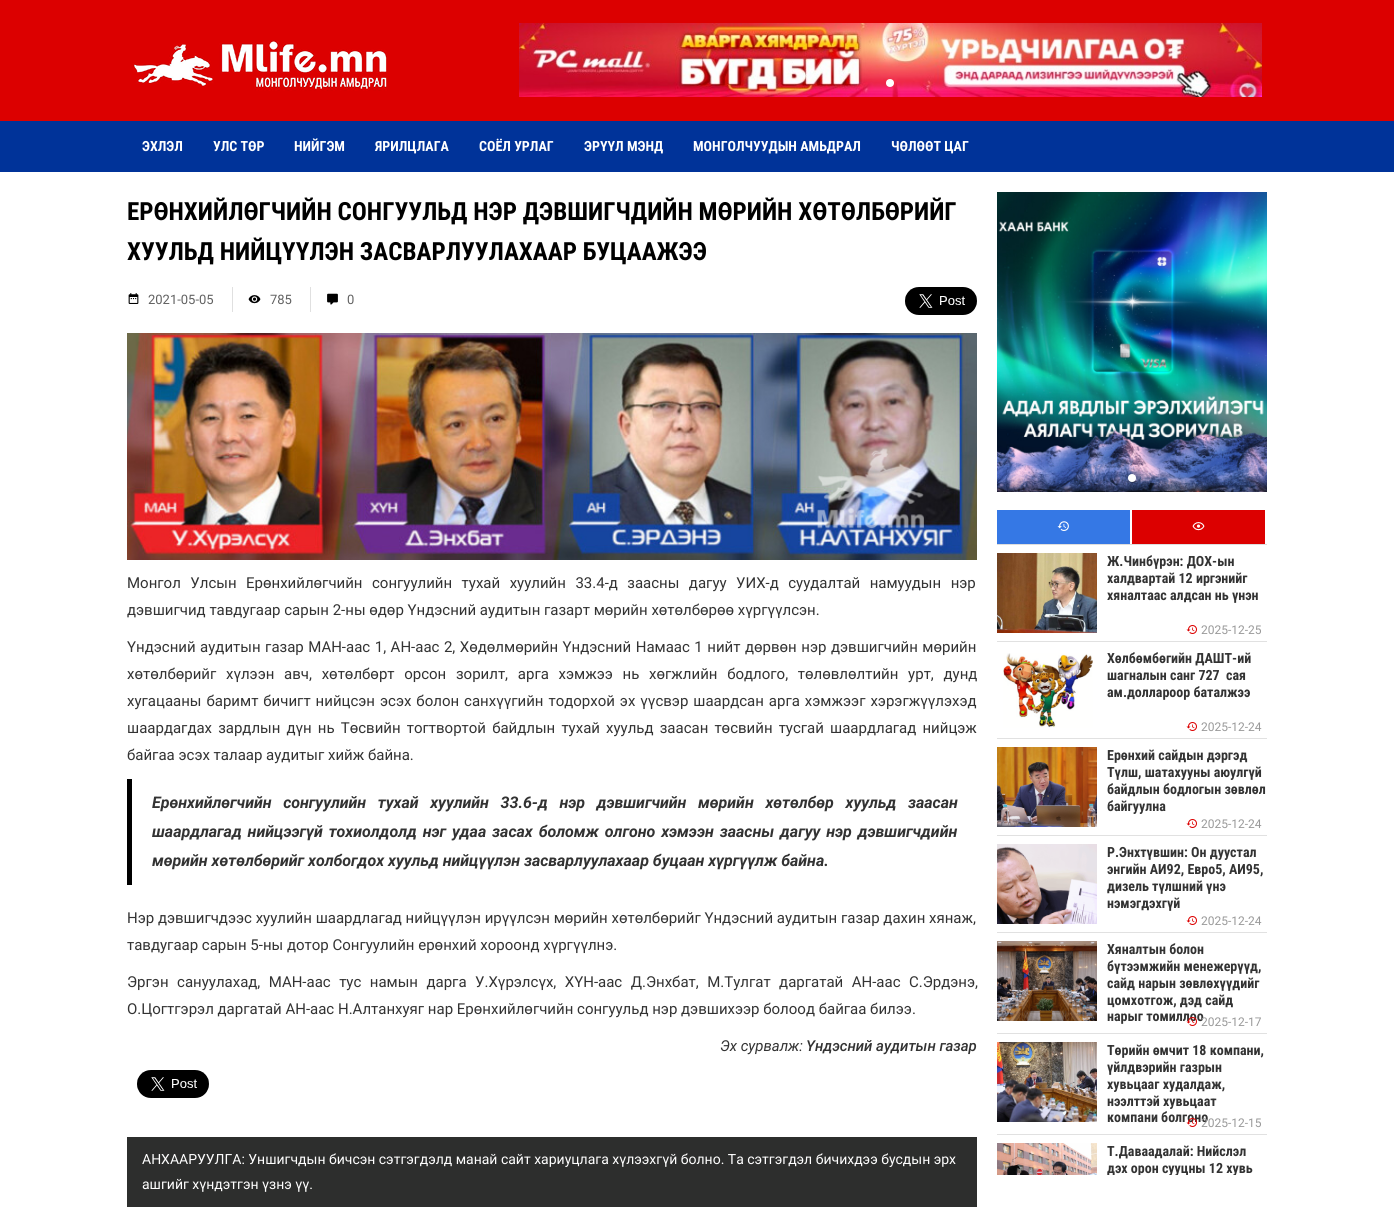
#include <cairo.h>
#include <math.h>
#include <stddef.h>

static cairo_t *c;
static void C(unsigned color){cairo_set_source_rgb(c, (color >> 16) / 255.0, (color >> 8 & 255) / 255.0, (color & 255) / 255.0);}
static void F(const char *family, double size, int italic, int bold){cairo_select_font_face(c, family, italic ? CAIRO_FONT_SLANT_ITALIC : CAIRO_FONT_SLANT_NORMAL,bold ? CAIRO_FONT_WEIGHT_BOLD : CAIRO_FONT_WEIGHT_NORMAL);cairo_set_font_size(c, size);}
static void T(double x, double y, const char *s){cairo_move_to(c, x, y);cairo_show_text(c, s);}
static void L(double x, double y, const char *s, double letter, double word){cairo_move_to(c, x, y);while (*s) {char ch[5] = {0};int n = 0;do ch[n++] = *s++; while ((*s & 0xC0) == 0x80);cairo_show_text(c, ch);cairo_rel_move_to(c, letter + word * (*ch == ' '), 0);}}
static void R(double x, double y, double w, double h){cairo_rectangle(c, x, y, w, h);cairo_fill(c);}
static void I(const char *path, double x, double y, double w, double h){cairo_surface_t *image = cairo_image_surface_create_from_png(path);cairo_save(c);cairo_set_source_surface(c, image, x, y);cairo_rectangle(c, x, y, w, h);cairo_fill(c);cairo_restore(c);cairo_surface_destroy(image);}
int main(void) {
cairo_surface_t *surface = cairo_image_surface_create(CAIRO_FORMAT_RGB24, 1394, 1207);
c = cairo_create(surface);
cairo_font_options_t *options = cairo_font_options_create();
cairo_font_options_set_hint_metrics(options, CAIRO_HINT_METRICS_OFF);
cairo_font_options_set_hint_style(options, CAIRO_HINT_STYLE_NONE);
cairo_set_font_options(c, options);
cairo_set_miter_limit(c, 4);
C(0xffffff);
cairo_paint(c);
C(0xdc0000);
R(0,0,1394,121);
I("1.png",133,40,255,51);
I("2.png",519,23,743,74);
C(0xffffff);
cairo_arc(c,890,83,4,0,2 * M_PI);
cairo_fill(c);
C(0x003399);
R(0,121,1394,51);
F("Roboto Condensed",14,0,1);
C(0xffffff);
T(142,151,"ЭХЛЭЛ");
T(213,151,"УЛС ТӨР");
T(294,151,"НИЙГЭМ");
T(375,151,"ЯРИЛЦЛАГА");
T(479,151,"СОЁЛ УРЛАГ");
T(584,151,"ЭРҮҮЛ МЭНД");
T(693,151,"МОНГОЛЧУУДЫН АМЬДРАЛ");
T(891,151,"ЧӨЛӨӨТ ЦАГ");
F("Roboto Condensed",25,0,1);
C(0x000000);
T(127,220,"ЕРӨНХИЙЛӨГЧИЙН СОНГУУЛЬД НЭР ДЭВШИГЧДИЙН МӨРИЙН ХӨТӨЛБӨРИЙГ");
T(127,260,"ХУУЛЬД НИЙЦҮҮЛЭН ЗАСВАРЛУУЛАХААР БУЦААЖЭЭ");
I("3.png",128,293,11,11);
F("Roboto",13,0,0);
C(0x616161);
T(148,304,"2021-05-05");
C(0xe0e0e0);
R(232,287,1,25);
I("4.png",248,295,13,9);
C(0x616161);
T(270,304,"785");
C(0xe0e0e0);
R(310,287,1,25);
I("5.png",327,293,11,12);
C(0x616161);
T(347,304,"0");
I("6.png",905,287,72,28);
I("7.png",127,333,850,227);
F("Roboto",15,0,0);
C(0x333333);
L(127,588,"Монгол Улсын Ерөнхийлөгчийн сонгуулийн тухай хуулийн 33.4-д заасны дагуу УИХ-д суудалтай намуудын нэр",0,5.75);
T(127,615,"дэвшигчид тавдугаар сарын 2-ны өдөр Үндэсний аудитын газарт мөрийн хөтөлбөрөө хүргүүлсэн.");
L(127,652,"Үндэсний аудитын газар МАН-аас 1, АН-аас 2, Хөдөлмөрийн Үндэсний Намаас 1 нийт дөрвөн нэр дэвшигчийн мөрийн",0,.8);
L(127,679,"хөтөлбөрийг хүлээн авч, хөтөлбөрт орсон зорилт, арга хэмжээ нь хөгжлийн бодлого, төлөвлөлтийн урт, дунд",0,6);
L(127,706,"хугацааны баримт бичигт нийцсэн эсэх болон санхүүгийн тодорхой эх үүсвэр шаардсан арга хэмжээг хэрэгжүүлэхэд",0,1.25);
L(127,733,"шаардагдах зардлын дүн нь Төсвийн тогтвортой байдлын тухай хуульд заасан төсвийн тусгай шаардлагад нийцэж",0,2.4);
T(127,760,"байгаа эсэх талаар аудитыг хийж байна.");
C(0x000000);
R(127,779,5,106);
F("Roboto",16,1,1);
C(0x333333);
L(152,808,"Ерөнхийлөгчийн сонгуулийн тухай хуулийн 33.6-д нэр дэвшигчийн мөрийн хөтөлбөр хуульд заасан",0,7.75);
L(152,837,"шаардлагад нийцээгүй тохиолдолд нэг удаа засах боломж олгоно хэмээн заасны дагуу нэр дэвшигчдийн",0,2);
T(152,866,"мөрийн хөтөлбөрийг холбогдох хуульд нийцүүлэн засварлуулахаар буцаан хүргүүлж байна.");
F("Roboto",15,0,0);
T(127,923,"Нэр дэвшигчдээс хуулийн шаардлагад нийцүүлэн ирүүлсэн мөрийн хөтөлбөрийг Үндэсний аудитын газар дахин хянаж,");
T(127,950,"тавдугаар сарын 5-ны дотор Сонгуулийн ерөнхий хороонд хүргүүлнэ.");
L(127,987,"Эргэн сануулахад, МАН-аас тус намын дарга У.Хүрэлсүх, ХҮН-аас Д.Энхбат, М.Тулгат даргатай АН-аас С.Эрдэнэ,",0,4.75);
T(127,1014,"О.Цогтгэрэл даргатай АН-аас Н.Алтанхуяг нар Ерөнхийлөгчийн сонгуульд нэр дэвшихээр болоод байгаа билээ.");
F("Roboto",15,1,0);
T(720,1051,"Эх сурвалж:");
F("Roboto Medium",15,1,0);
T(806,1051,"Үндэсний аудитын газар");
I("6.png",137,1070,72,28);
C(0x2d2e2d);
R(127,1137,850,70);
F("Roboto",14,0,0);
C(0xffffff);
T(142,1164,"АНХААРУУЛГА: Уншигчдын бичсэн сэтгэгдэлд манай сайт хариуцлага хүлээхгүй болно. Та сэтгэгдэл бичихдээ бусдын эрх");
T(142,1189,"ашгийг хүндэтгэн үзнэ үү.");
I("8.png",997,192,270,300);
cairo_arc(c,1132,478,4,0,2 * M_PI);
cairo_fill(c);
C(0xdddddd);
R(997,544,270,1);
C(0x3578e5);
R(997,510,133,34);
I("9.png",1057,521,12,10);
C(0xdc0000);
R(1132,510,133,34);
I("10.png",1192,522,13,9);
C(0xe1e1e1);
R(997,641,270,1);
I("11.png",997,553,100,80);
F("Roboto Condensed",14,0,1);
C(0x333333);
T(1107,566,"Ж.Чинбүрэн: ДОХ-ын");
T(1107,583,"халдвартай 12 иргэнийг");
T(1107,600,"хяналтаас алдсан нь үнэн");
I("12.png",1186,625,11,9);
F("Roboto",12,0,0);
C(0x999999);
T(1201,634,"2025-12-25");
C(0xe1e1e1);
R(997,738,270,1);
I("13.png",1003,653,90,75);
F("Roboto Condensed",14,0,1);
C(0x333333);
T(1107,663,"Хөлбөмбөгийн ДАШТ-ий");
T(1107,680,"шагналын санг 727  сая");
T(1107,697,"ам.доллароор баталжээ");
I("12.png",1186,722,11,9);
F("Roboto",12,0,0);
C(0x999999);
T(1201,731,"2025-12-24");
C(0xe1e1e1);
R(997,835,270,1);
I("14.png",997,747,100,80);
F("Roboto Condensed",14,0,1);
C(0x333333);
T(1107,760,"Ерөнхий сайдын дэргэд");
T(1107,777,"Түлш, шатахууны аюулгүй");
T(1107,794,"байдлын бодлогын зөвлөл");
T(1107,811,"байгуулна");
I("12.png",1186,819,11,9);
F("Roboto",12,0,0);
C(0x999999);
T(1201,828,"2025-12-24");
C(0xe1e1e1);
R(997,932,270,1);
I("15.png",997,844,100,80);
F("Roboto Condensed",14,0,1);
C(0x333333);
T(1107,857,"Р.Энхтүвшин: Он дуустал");
T(1107,874,"энгийн АИ92, Евро5, АИ95,");
T(1107,891,"дизель түлшний үнэ");
T(1107,908,"нэмэгдэхгүй");
I("12.png",1186,916,11,9);
F("Roboto",12,0,0);
C(0x999999);
T(1201,925,"2025-12-24");
C(0xe1e1e1);
R(997,1033,270,1);
I("16.png",997,941,100,80);
F("Roboto Condensed",14,0,1);
C(0x333333);
T(1107,954,"Хяналтын болон");
T(1107,971,"бүтээмжийн менежерүүд,");
T(1107,988,"сайд нарын зөвлөхүүдийг");
T(1107,1005,"цомхотгож, дэд сайд");
T(1107,1021,"нарыг томиллоо");
I("17.png",1186,1017,11,9);
F("Roboto",12,0,0);
C(0x999999);
T(1201,1026,"2025-12-17");
C(0xe1e1e1);
R(997,1134,270,1);
I("18.png",997,1042,100,80);
F("Roboto Condensed",14,0,1);
C(0x333333);
T(1107,1055,"Төрийн өмчит 18 компани,");
T(1107,1072,"үйлдвэрийн газрын");
T(1107,1089,"хувьцааг худалдаж,");
T(1107,1106,"нээлттэй хувьцаат");
T(1107,1122,"компани болгоно");
I("19.png",1186,1118,11,9);
F("Roboto",12,0,0);
C(0x999999);
T(1201,1127,"2025-12-15");
I("20.png",997,1143,100,32);
F("Roboto Condensed",14,0,1);
C(0x333333);
T(1107,1156,"Т.Даваадалай: Нийслэл");
cairo_save(c);
cairo_rectangle(c,997,545,270,630);
cairo_clip(c);
T(1107,1173,"дэх орон сууцны 12 хувь");
cairo_restore(c);
cairo_surface_write_to_png(surface, "o.png");
cairo_font_options_destroy(options);
cairo_destroy(c);
cairo_surface_destroy(surface);
return 0;
}
